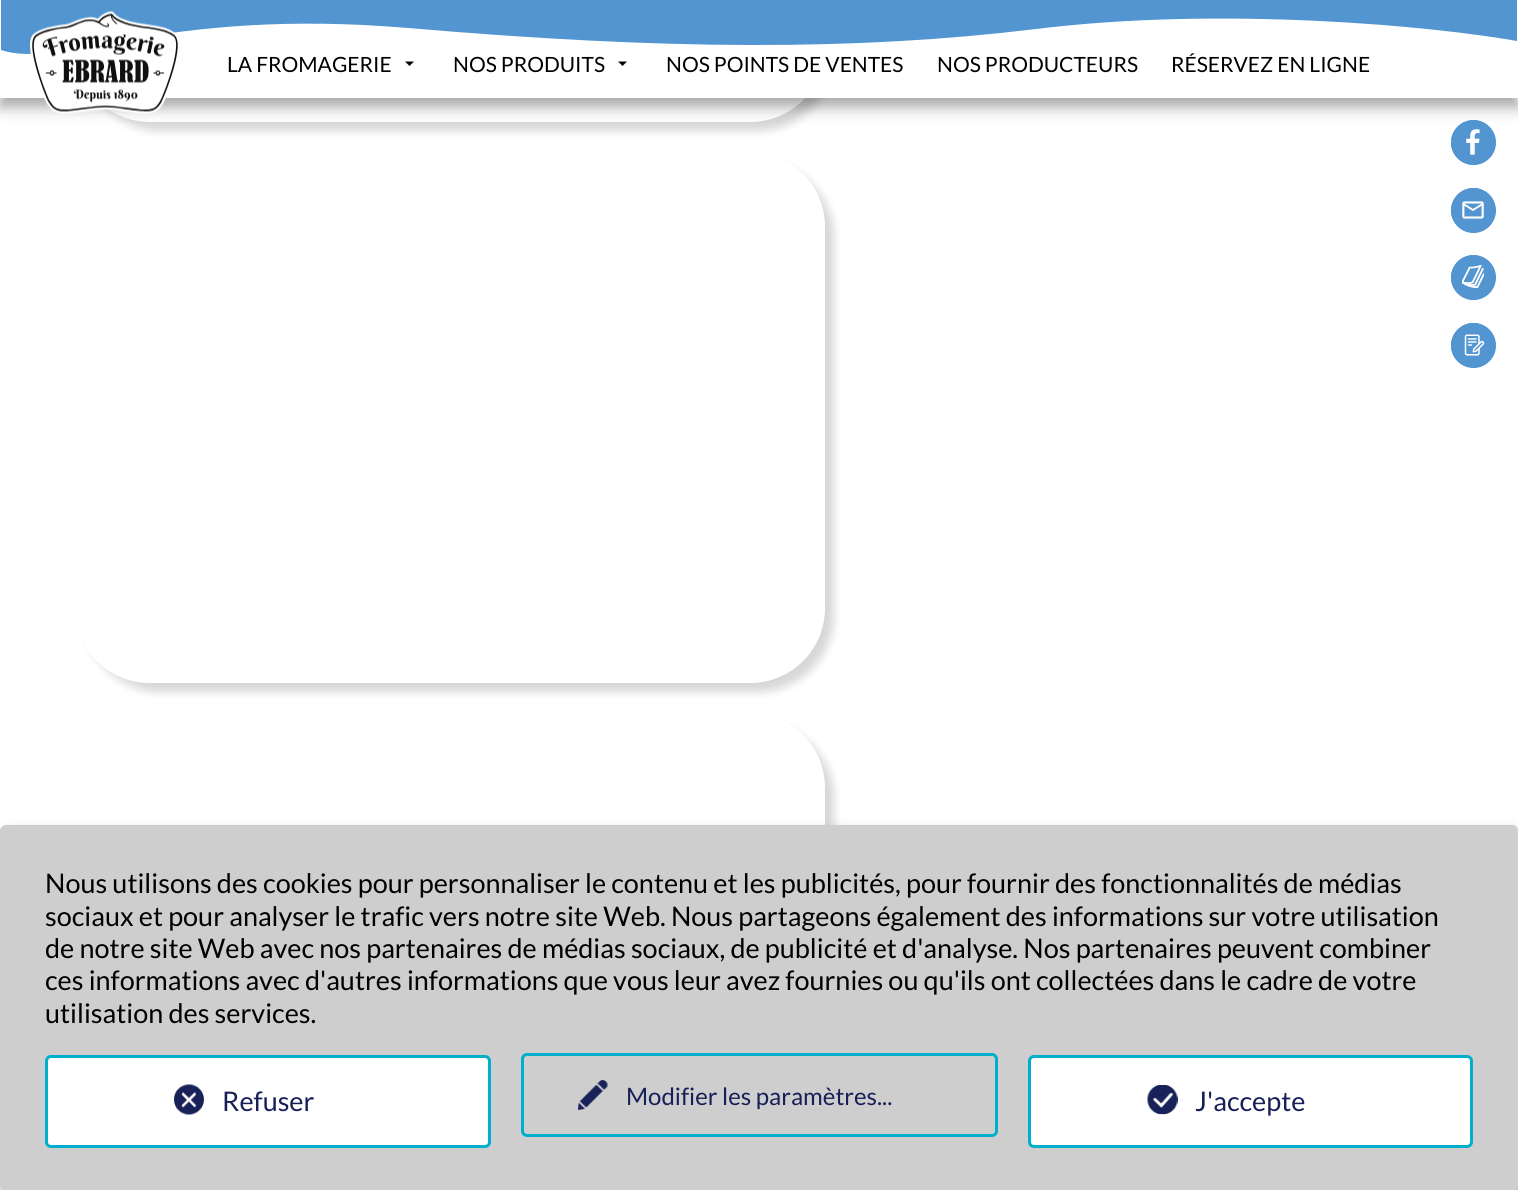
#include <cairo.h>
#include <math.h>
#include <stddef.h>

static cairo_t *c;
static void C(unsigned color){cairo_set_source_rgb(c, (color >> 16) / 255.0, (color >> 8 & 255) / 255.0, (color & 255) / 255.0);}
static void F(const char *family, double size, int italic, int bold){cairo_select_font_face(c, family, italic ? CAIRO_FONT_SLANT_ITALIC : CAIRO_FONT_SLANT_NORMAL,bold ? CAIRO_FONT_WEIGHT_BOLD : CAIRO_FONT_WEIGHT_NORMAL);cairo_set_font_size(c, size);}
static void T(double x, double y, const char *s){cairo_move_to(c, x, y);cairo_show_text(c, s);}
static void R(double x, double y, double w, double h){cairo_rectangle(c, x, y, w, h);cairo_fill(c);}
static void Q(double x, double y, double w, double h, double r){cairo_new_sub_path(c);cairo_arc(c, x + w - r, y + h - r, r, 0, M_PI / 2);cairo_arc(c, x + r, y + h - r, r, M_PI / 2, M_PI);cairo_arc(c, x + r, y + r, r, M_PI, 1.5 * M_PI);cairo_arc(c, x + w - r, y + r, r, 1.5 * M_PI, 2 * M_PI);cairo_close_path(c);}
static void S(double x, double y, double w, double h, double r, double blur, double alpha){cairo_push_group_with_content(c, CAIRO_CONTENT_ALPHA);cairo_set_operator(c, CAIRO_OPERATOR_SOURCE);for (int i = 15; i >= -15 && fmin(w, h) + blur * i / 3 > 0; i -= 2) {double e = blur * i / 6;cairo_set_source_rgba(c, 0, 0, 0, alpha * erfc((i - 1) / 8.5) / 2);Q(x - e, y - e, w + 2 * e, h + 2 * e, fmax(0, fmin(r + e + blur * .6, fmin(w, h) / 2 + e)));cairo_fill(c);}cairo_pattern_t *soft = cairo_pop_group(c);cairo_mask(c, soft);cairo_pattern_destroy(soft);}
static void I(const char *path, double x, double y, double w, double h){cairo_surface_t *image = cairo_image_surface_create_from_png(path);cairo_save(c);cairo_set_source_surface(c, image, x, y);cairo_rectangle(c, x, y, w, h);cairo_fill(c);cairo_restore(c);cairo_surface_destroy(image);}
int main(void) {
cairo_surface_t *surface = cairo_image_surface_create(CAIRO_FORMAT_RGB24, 1518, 1190);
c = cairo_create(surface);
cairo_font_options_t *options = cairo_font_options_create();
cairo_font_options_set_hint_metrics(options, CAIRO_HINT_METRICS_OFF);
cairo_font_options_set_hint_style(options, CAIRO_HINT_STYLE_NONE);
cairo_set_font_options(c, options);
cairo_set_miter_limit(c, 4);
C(0xffffff);
cairo_paint(c);
cairo_save(c);
cairo_set_fill_rule(c,CAIRO_FILL_RULE_EVEN_ODD);
cairo_new_path(c);
cairo_move_to(c,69,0);
cairo_line_to(c,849,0);
cairo_line_to(c,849,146);
cairo_line_to(c,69,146);
cairo_close_path(c);
cairo_move_to(c,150,-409);
cairo_line_to(c,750,-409);
cairo_curve_to(c,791.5,-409,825,-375.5,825,-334);
cairo_line_to(c,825,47);
cairo_curve_to(c,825,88.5,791.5,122,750,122);
cairo_line_to(c,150,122);
cairo_curve_to(c,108.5,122,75,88.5,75,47);
cairo_line_to(c,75,-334);
cairo_curve_to(c,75,-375.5,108.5,-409,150,-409);
cairo_close_path(c);
cairo_clip(c);
C(0x000000);
S(84,-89,750,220,75,4.5,.16);
cairo_restore(c);
cairo_save(c);
cairo_set_fill_rule(c,CAIRO_FILL_RULE_EVEN_ODD);
cairo_new_path(c);
cairo_move_to(c,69,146);
cairo_line_to(c,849,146);
cairo_line_to(c,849,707);
cairo_line_to(c,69,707);
cairo_close_path(c);
cairo_move_to(c,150,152);
cairo_line_to(c,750,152);
cairo_curve_to(c,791.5,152,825,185.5,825,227);
cairo_line_to(c,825,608);
cairo_curve_to(c,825,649.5,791.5,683,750,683);
cairo_line_to(c,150,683);
cairo_curve_to(c,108.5,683,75,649.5,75,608);
cairo_line_to(c,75,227);
cairo_curve_to(c,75,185.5,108.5,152,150,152);
cairo_close_path(c);
cairo_clip(c);
C(0x000000);
S(84,161,750,531,75,4.5,.16);
cairo_restore(c);
cairo_save(c);
cairo_set_fill_rule(c,CAIRO_FILL_RULE_EVEN_ODD);
cairo_new_path(c);
cairo_move_to(c,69,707);
cairo_line_to(c,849,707);
cairo_line_to(c,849,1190);
cairo_line_to(c,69,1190);
cairo_close_path(c);
cairo_move_to(c,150,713);
cairo_line_to(c,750,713);
cairo_curve_to(c,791.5,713,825,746.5,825,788);
cairo_line_to(c,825,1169);
cairo_curve_to(c,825,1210.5,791.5,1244,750,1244);
cairo_line_to(c,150,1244);
cairo_curve_to(c,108.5,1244,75,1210.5,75,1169);
cairo_line_to(c,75,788);
cairo_curve_to(c,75,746.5,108.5,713,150,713);
cairo_close_path(c);
cairo_clip(c);
C(0x000000);
S(84,722,750,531,75,4.5,.16);
cairo_restore(c);
C(0x5295d1);
cairo_arc(c,1473.5,142.5,22.5,0,2 * M_PI);
cairo_fill(c);
I("2.png",1451,120,45,45);
C(0x000000);
S(0,9,1518,98,0,7.5,.35);
C(0xffffff);
R(0,0,1518,98);
C(0x5295d1);
cairo_set_fill_rule(c,CAIRO_FILL_RULE_EVEN_ODD);
cairo_new_path(c);
cairo_move_to(c,1,0);
cairo_line_to(c,1517,0);
cairo_line_to(c,1517,41);
cairo_curve_to(c,1432,26,1223,6,1036,29);
cairo_curve_to(c,855,51,664,50,408,28);
cairo_curve_to(c,161,7,61,70,1,50);
cairo_close_path(c);
cairo_fill(c);
I("1.png",30,11,148,103);
F("Lato",21,0,0);
C(0x000000);
T(227,72,"LA FROMAGERIE");
cairo_set_fill_rule(c,CAIRO_FILL_RULE_WINDING);
cairo_new_path(c);
cairo_move_to(c,405,61.5);
cairo_line_to(c,414,61.5);
cairo_line_to(c,409.5,66);
cairo_close_path(c);
cairo_fill(c);
T(453,72,"NOS PRODUITS");
cairo_new_path(c);
cairo_move_to(c,618,61.5);
cairo_line_to(c,627,61.5);
cairo_line_to(c,622.5,66);
cairo_close_path(c);
cairo_fill(c);
T(666,72,"NOS POINTS DE VENTES");
T(937,72,"NOS PRODUCTEURS");
T(1171,72,"RÉSERVEZ EN LIGNE");
C(0x5295d1);
cairo_new_path(c);
cairo_arc(c,1473.5,210.5,22.5,0,2 * M_PI);
cairo_fill(c);
I("3.png",1451,188,45,45);
cairo_arc(c,1473.5,277.5,22.5,0,2 * M_PI);
cairo_fill(c);
I("4.png",1451,255,45,45);
cairo_arc(c,1473.5,345.5,22.5,0,2 * M_PI);
cairo_fill(c);
I("5.png",1451,323,45,45);
C(0x000000);
S(8,833,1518,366,6,7.5,.19);
S(0,831,1518,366,6,4.5,.2);
C(0xcecece);
Q(0,825,1518,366,6);
cairo_fill(c);
F("Lato",27,0,0);
C(0x000000);
T(45,893,"Nous utilisons des cookies pour personnaliser le contenu et les publicités, pour fournir des fonctionnalités de médias");
T(45,926,"sociaux et pour analyser le trafic vers notre site Web. Nous partageons également des informations sur votre utilisation");
T(45,958,"de notre site Web avec nos partenaires de médias sociaux, de publicité et d'analyse. Nos partenaires peuvent combiner");
T(45,990,"ces informations avec d'autres informations que vous leur avez fournies ou qu'ils ont collectées dans le cadre de votre");
T(45,1023,"utilisation des services.");
Q(522.5,1054.5,474,81,4.5);
C(0x00afcb);
cairo_set_line_width(c,3);
cairo_stroke(c);
I("6.png",578,1080,30,30);
F("Lato",24,0,0);
C(0x161f57);
T(626,1105,"Modifier les paramètres...");
C(0xffffff);
Q(46.5,1056.5,443,90,4.5);
cairo_fill_preserve(c);
C(0x00afcb);
cairo_stroke(c);
I("7.png",174,1084,30,31);
F("Lato",27,0,0);
C(0x161f57);
T(222,1111,"Refuser");
C(0xffffff);
Q(1029.5,1056.5,442,90,4.5);
cairo_fill_preserve(c);
C(0x00afcb);
cairo_stroke(c);
I("8.png",1147,1085,31,30);
C(0x161f57);
T(1195,1111,"J'accepte");
cairo_surface_write_to_png(surface, "o.png");
cairo_font_options_destroy(options);
cairo_destroy(c);
cairo_surface_destroy(surface);
return 0;
}
